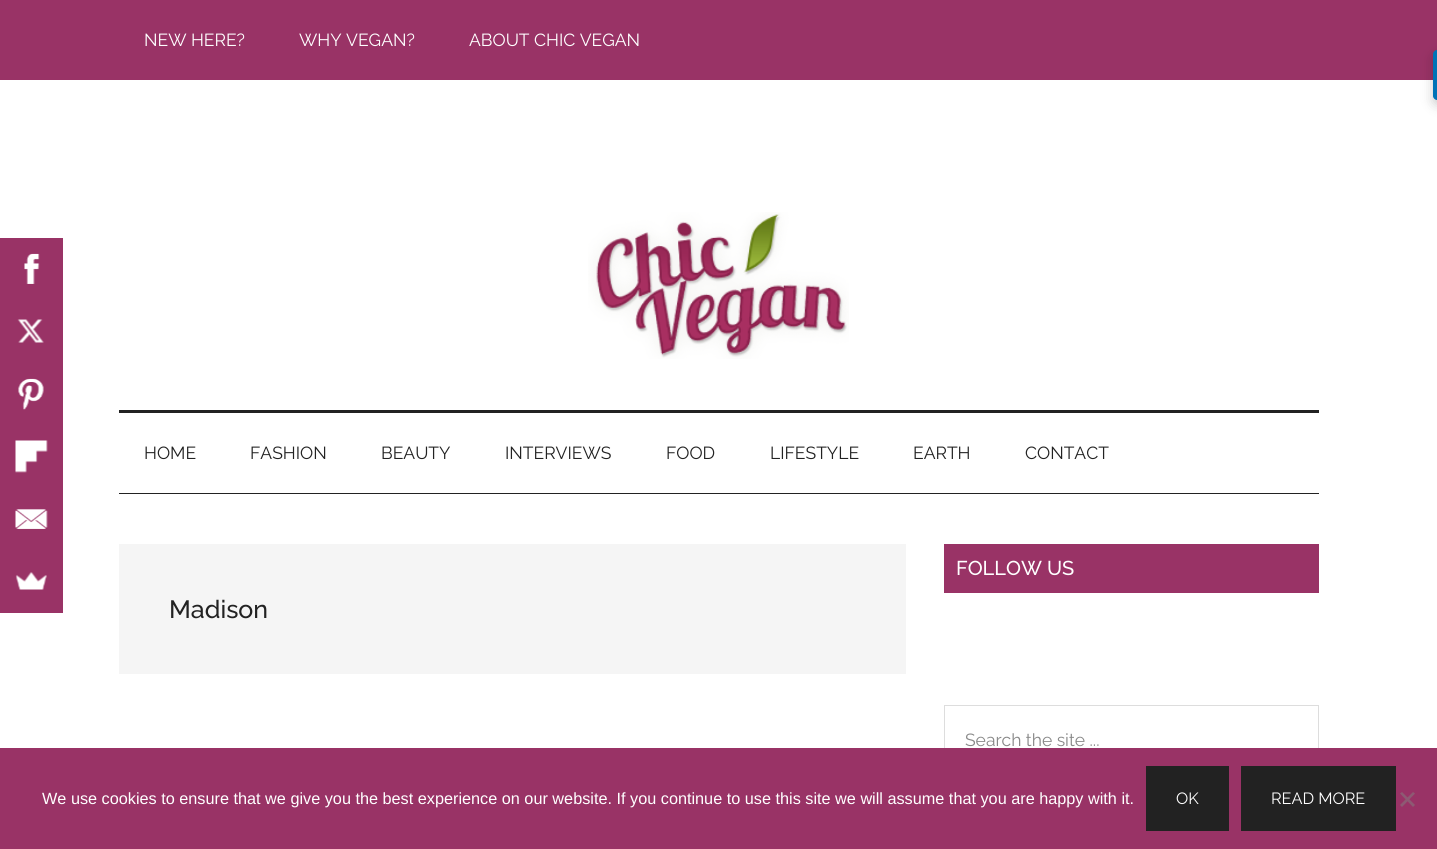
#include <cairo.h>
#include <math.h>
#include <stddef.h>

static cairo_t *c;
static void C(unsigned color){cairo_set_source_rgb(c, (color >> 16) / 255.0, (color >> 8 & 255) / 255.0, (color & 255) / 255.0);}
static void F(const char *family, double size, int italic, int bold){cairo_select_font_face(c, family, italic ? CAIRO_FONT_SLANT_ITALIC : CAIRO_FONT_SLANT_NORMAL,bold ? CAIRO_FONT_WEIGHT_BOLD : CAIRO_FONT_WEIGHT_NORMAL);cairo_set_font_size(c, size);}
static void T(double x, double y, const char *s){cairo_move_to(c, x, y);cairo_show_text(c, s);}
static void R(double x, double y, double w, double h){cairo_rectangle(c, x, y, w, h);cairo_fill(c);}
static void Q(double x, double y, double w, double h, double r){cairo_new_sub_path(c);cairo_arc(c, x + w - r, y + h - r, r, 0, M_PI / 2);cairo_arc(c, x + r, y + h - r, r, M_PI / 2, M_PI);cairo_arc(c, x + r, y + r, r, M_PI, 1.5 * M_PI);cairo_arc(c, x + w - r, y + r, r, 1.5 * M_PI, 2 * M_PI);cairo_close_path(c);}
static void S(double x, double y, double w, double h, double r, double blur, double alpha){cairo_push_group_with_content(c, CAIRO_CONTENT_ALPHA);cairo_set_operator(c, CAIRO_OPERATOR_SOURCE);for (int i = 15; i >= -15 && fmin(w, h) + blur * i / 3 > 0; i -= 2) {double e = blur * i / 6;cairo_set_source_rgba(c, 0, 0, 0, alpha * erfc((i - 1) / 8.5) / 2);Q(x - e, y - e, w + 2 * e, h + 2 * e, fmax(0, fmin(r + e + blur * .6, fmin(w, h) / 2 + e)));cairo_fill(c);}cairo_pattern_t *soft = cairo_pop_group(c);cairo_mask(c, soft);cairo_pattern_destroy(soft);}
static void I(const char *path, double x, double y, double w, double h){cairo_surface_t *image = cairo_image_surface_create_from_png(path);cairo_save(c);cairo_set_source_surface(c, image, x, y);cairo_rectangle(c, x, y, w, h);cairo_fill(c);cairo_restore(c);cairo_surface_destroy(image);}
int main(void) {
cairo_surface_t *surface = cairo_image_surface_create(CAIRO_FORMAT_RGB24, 1437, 849);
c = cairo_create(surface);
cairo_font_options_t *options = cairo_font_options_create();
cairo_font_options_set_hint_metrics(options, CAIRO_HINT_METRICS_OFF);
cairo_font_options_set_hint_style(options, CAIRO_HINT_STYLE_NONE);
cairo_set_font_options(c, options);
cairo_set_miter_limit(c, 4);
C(0xffffff);
cairo_paint(c);
C(0x993366);
R(0,0,1437,80);
F("Raleway",17.5,0,0);
C(0xffffff);
T(144,46,"NEW HERE?");
T(299,46,"WHY VEGAN?");
T(469,46,"ABOUT CHIC VEGAN");
C(0x222222);
R(119,410,1200,3);
I("1.png",588,212,261,147);
R(119,493,1200,1);
T(144,459,"HOME");
T(250,459,"FASHION");
T(381,459,"BEAUTY");
T(505,459,"INTERVIEWS");
T(666,459,"FOOD");
T(770,459,"LIFESTYLE");
T(913,459,"EARTH");
T(1025,459,"CONTACT");
C(0xf5f5f5);
R(119,544,787,130);
F("Raleway Medium",25,0,0);
C(0x222222);
T(169,618,"Madison");
C(0x993366);
R(944,544,375,49);
F("Raleway Medium",20,0,0);
C(0xffffff);
T(956,575,"FOLLOW US");
cairo_rectangle(c,944.5,705.5,374,70);
C(0xdddddd);
cairo_set_line_width(c,1);
cairo_stroke(c);
F("Raleway",17.5,0,0);
C(0x888888);
T(965,746,"Search the site ...");
C(0x000000);
S(1433,55,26,50,4,6,.2);
C(0x0073b7);
cairo_new_path(c);
cairo_move_to(c,1437,50);
cairo_line_to(c,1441,50);
cairo_line_to(c,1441,100);
cairo_line_to(c,1437,100);
cairo_curve_to(c,1435,100,1433,98,1433,96);
cairo_line_to(c,1433,54);
cairo_curve_to(c,1433,52,1435,50,1437,50);
cairo_close_path(c);
cairo_fill(c);
C(0x993366);
R(0,238,63,375);
I("2.png",24,253,16,31);
I("3.png",17,319,27,24);
I("4.png",18,378,26,32);
I("5.png",15,440,33,33);
I("6.png",15,509,33,20);
I("7.png",15,572,32,18);
R(0,748,1437,101);
F("Liberation Sans",16.25,0,0);
C(0xffffff);
T(42,804,"We use cookies to ensure that we give you the best experience on our website. If you continue to use this site we will assume that you are happy with it.");
C(0x222222);
R(1146,766,83,65);
F("Raleway",16.25,0,0);
C(0xffffff);
T(1176,804,"OK");
C(0x222222);
R(1241,766,155,65);
C(0xffffff);
T(1271,804,"READ MORE");
C(0x8d5a73);
cairo_new_path(c);
cairo_move_to(c,1413,792);
cairo_line_to(c,1415,793.5);
cairo_line_to(c,1402,807);
cairo_line_to(c,1400,805);
cairo_close_path(c);
cairo_fill(c);
cairo_new_path(c);
cairo_move_to(c,1400,793.5);
cairo_line_to(c,1402,792);
cairo_line_to(c,1415,805);
cairo_line_to(c,1413,807);
cairo_close_path(c);
cairo_fill(c);
cairo_surface_write_to_png(surface, "o.png");
cairo_font_options_destroy(options);
cairo_destroy(c);
cairo_surface_destroy(surface);
return 0;
}
